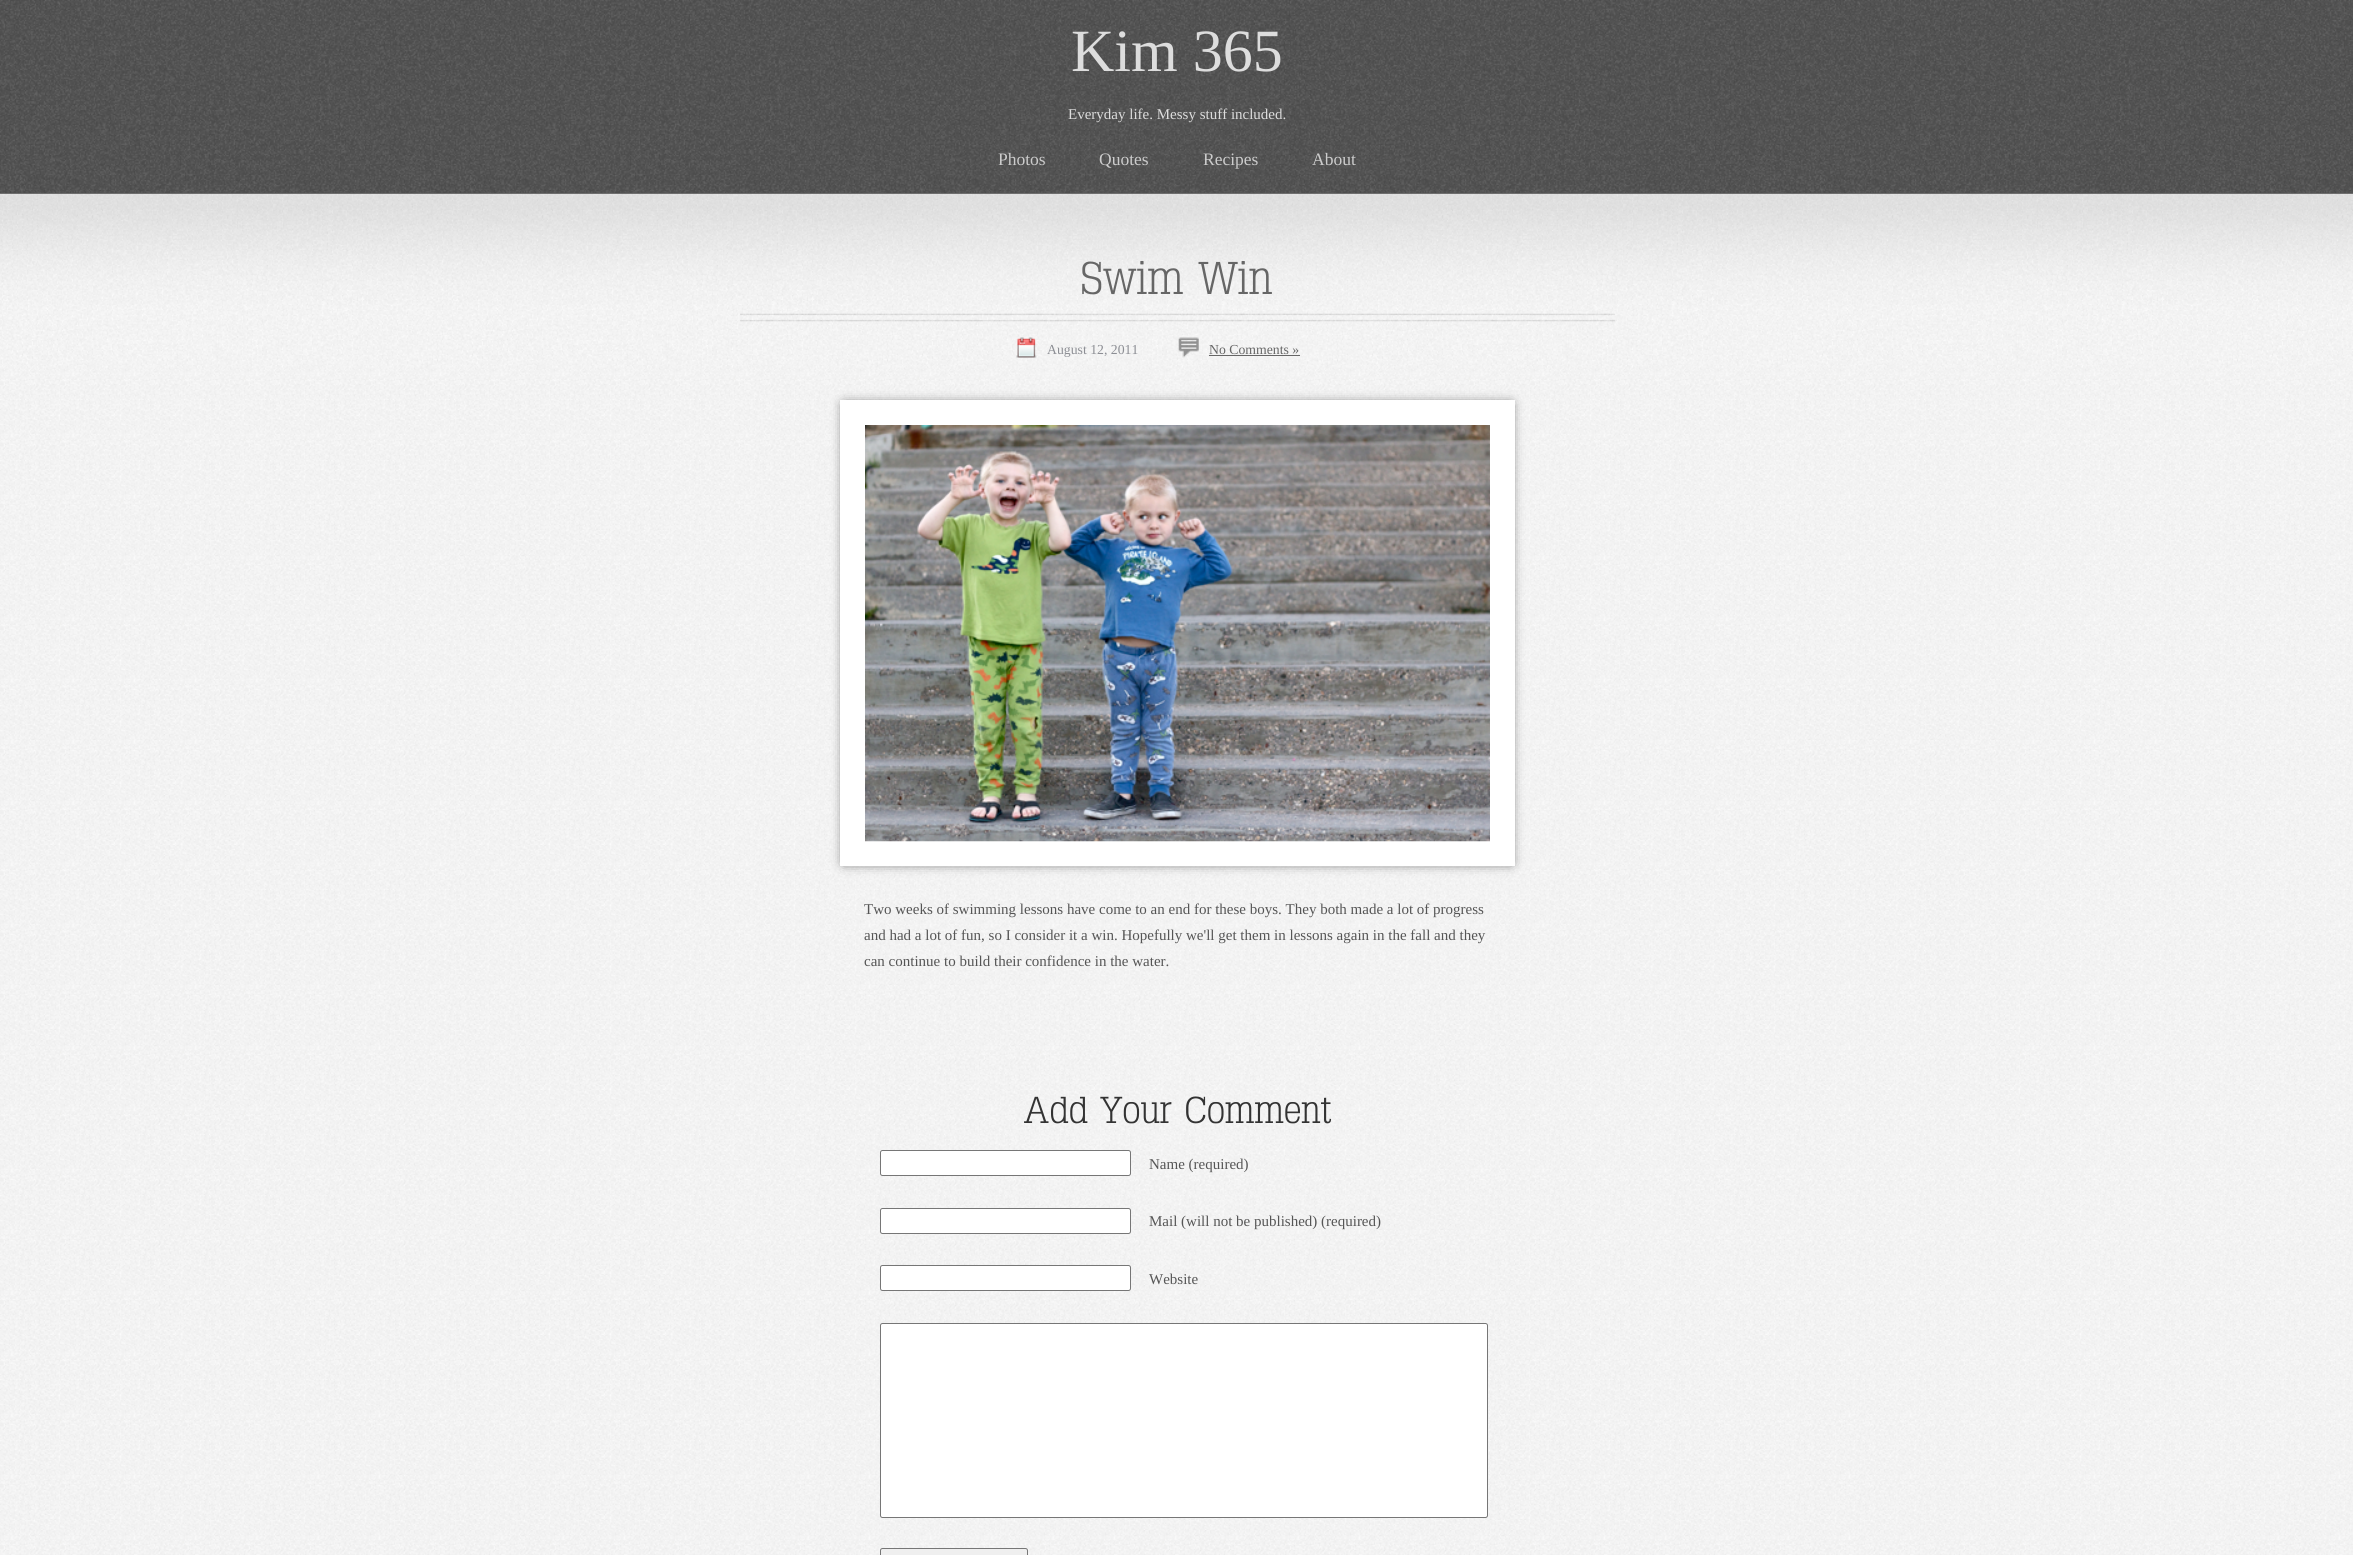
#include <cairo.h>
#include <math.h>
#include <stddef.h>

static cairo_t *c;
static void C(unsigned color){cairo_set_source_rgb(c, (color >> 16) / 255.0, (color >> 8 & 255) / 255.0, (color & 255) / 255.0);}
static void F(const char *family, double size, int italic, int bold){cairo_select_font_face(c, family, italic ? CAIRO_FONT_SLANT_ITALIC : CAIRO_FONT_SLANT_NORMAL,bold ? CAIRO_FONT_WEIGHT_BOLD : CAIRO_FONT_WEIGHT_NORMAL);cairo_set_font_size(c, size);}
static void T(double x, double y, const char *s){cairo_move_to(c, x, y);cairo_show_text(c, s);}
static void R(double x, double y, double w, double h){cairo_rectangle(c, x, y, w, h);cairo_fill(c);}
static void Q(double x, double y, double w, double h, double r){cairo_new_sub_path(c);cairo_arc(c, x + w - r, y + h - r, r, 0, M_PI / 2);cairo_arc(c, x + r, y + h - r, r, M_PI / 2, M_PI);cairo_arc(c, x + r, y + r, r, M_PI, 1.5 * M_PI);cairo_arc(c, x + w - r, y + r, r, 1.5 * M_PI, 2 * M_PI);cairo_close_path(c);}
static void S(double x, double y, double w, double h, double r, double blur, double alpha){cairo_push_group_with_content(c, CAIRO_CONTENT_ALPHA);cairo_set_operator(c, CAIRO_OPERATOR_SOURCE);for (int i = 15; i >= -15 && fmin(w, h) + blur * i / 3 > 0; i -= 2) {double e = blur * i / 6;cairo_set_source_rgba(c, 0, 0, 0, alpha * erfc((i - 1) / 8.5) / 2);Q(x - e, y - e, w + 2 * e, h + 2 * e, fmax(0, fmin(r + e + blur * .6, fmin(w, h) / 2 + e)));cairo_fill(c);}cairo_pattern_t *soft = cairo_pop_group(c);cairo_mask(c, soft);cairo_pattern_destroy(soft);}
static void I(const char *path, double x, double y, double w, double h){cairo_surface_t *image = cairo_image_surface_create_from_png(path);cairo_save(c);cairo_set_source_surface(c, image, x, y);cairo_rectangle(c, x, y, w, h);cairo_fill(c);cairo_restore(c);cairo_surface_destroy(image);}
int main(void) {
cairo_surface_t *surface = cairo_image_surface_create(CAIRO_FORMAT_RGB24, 2353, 1555);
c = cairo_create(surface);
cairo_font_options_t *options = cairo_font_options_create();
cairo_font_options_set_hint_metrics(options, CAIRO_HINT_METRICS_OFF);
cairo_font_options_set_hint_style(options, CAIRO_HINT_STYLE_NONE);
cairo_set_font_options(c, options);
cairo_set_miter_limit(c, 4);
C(0xffffff);
cairo_paint(c);
I("1.png",0,367,2353,1188);
I("2.png",0,0,2353,193);
C(0x484848);
R(0,193,2353,1);
F("Liberation Serif",60,0,0);
C(0xdddddd);
T(1071,71,"Kim 365");
F("Liberation Serif",15,0,0);
T(1068,119,"Everyday life. Messy stuff included.");
F("Liberation Serif",17.5,0,0);
C(0xcccccc);
T(998,165,"Photos");
T(1099,165,"Quotes");
T(1203,165,"Recipes");
T(1312,165,"About");
I("3.png",0,193,2353,175);
I("4.png",740,313,875,9);
F("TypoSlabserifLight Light",45,0,0);
C(0x666666);
T(1081,294,"Swim Win");
I("5.png",1016,337,21,21);
F("Liberation Serif",13.75,0,0);
C(0x8c8e94);
T(1047,354,"August 12, 2011");
I("6.png",1178,337,21,21);
C(0x666666);
T(1209,354,"No Comments »");
R(1209,355,91,1);
C(0x555555);
S(844,404,667,459,0,6,1);
cairo_rectangle(c,852.5,412.5,650,441);
C(0xffffff);
cairo_set_line_width(c,25);
cairo_stroke(c);
I("7.png",865,425,625,417);
F("Liberation Serif",15,0,0);
C(0x555555);
T(864,914,"Two weeks of swimming lessons have come to an end for these boys. They both made a lot of progress");
T(864,940,"and had a lot of fun, so I consider it a win. Hopefully we'll get them in lessons again in the fall and they");
T(864,966,"can continue to build their confidence in the water.");
F("TypoSlabserifLight Light",36.75,0,0);
C(0x333333);
T(1023,1123,"Add Your Comment");
C(0xffffff);
Q(880.5,1150.5,250,25,2);
cairo_fill_preserve(c);
C(0x767676);
cairo_set_line_width(c,1);
cairo_stroke(c);
F("Liberation Serif",15,0,0);
C(0x555555);
T(1149,1169,"Name (required)");
C(0xffffff);
Q(880.5,1208.5,250,25,2);
cairo_fill_preserve(c);
C(0x767676);
cairo_stroke(c);
C(0x555555);
T(1149,1226,"Mail (will not be published) (required)");
C(0xffffff);
Q(880.5,1265.5,250,25,2);
cairo_fill_preserve(c);
C(0x767676);
cairo_stroke(c);
C(0x555555);
T(1149,1284,"Website");
C(0xffffff);
Q(880.5,1323.5,607,194,2);
cairo_fill_preserve(c);
C(0x767676);
cairo_stroke(c);
C(0xefefef);
Q(880.5,1548.5,147,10,2);
cairo_fill_preserve(c);
C(0x767676);
cairo_stroke(c);
cairo_surface_write_to_png(surface, "o.png");
cairo_font_options_destroy(options);
cairo_destroy(c);
cairo_surface_destroy(surface);
return 0;
}
